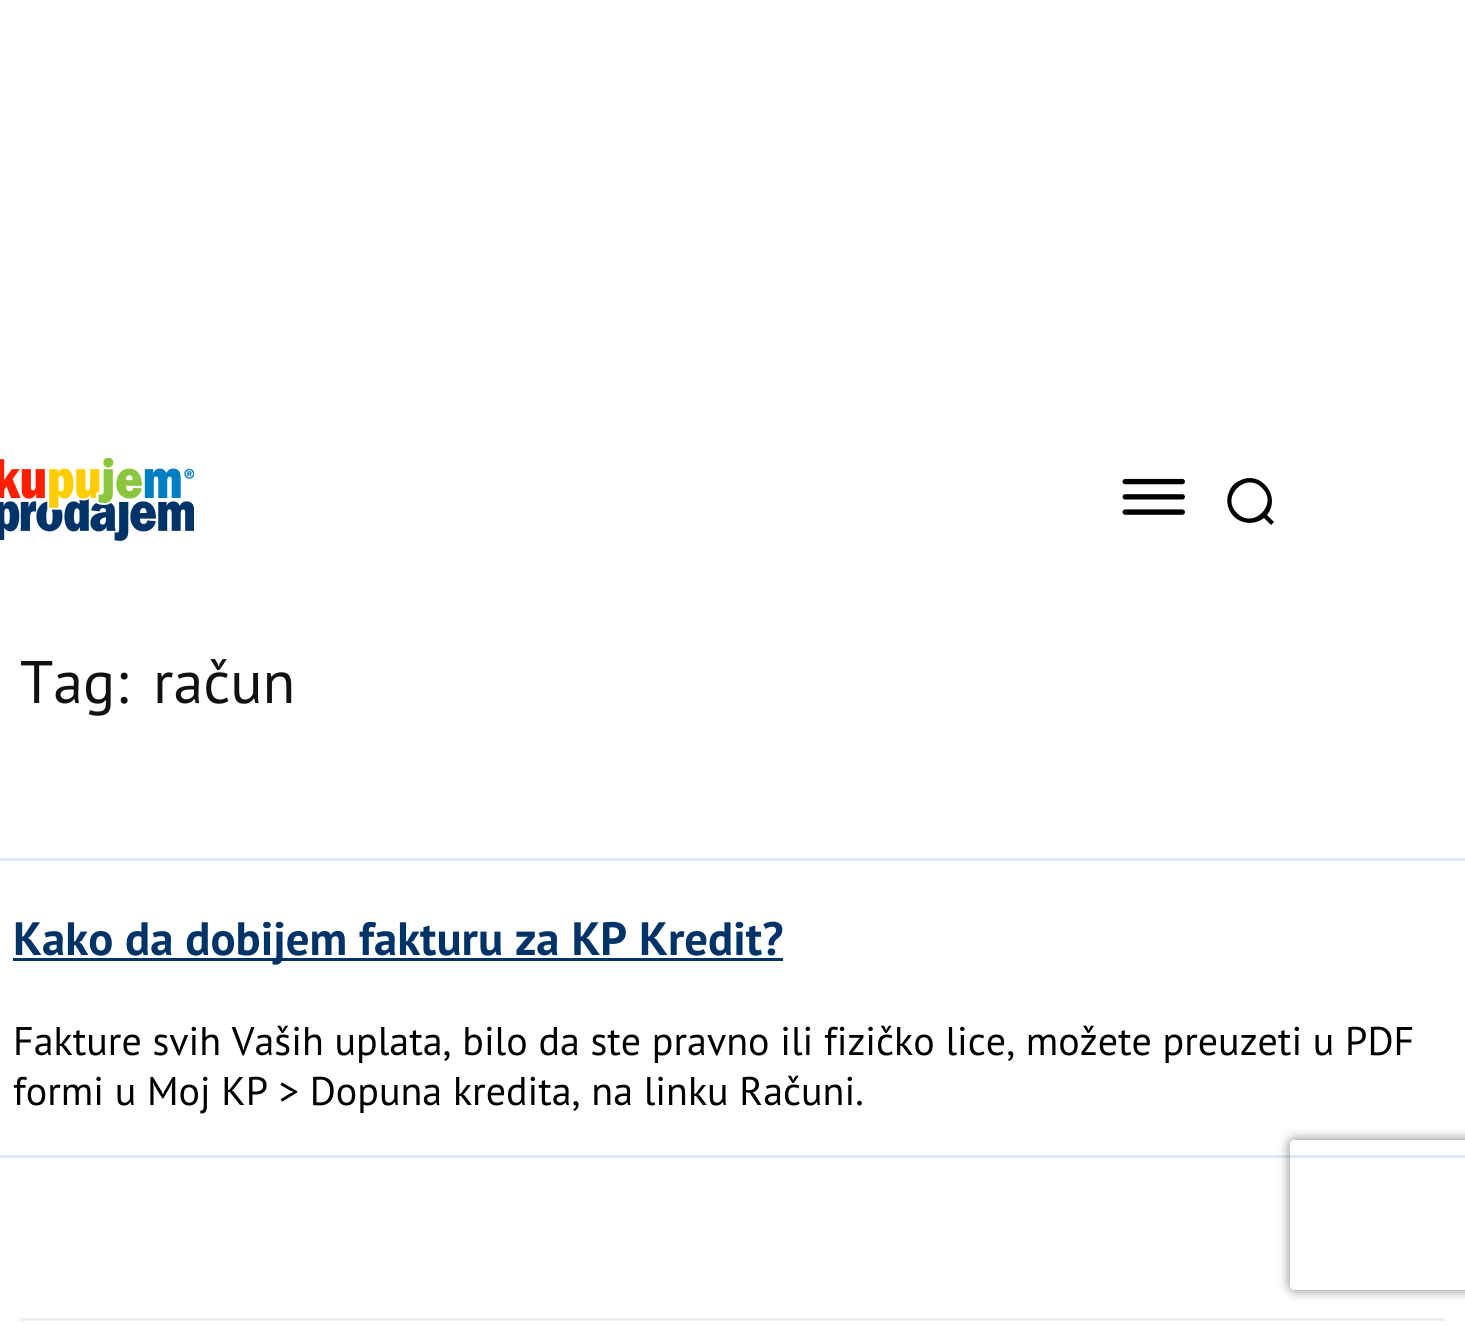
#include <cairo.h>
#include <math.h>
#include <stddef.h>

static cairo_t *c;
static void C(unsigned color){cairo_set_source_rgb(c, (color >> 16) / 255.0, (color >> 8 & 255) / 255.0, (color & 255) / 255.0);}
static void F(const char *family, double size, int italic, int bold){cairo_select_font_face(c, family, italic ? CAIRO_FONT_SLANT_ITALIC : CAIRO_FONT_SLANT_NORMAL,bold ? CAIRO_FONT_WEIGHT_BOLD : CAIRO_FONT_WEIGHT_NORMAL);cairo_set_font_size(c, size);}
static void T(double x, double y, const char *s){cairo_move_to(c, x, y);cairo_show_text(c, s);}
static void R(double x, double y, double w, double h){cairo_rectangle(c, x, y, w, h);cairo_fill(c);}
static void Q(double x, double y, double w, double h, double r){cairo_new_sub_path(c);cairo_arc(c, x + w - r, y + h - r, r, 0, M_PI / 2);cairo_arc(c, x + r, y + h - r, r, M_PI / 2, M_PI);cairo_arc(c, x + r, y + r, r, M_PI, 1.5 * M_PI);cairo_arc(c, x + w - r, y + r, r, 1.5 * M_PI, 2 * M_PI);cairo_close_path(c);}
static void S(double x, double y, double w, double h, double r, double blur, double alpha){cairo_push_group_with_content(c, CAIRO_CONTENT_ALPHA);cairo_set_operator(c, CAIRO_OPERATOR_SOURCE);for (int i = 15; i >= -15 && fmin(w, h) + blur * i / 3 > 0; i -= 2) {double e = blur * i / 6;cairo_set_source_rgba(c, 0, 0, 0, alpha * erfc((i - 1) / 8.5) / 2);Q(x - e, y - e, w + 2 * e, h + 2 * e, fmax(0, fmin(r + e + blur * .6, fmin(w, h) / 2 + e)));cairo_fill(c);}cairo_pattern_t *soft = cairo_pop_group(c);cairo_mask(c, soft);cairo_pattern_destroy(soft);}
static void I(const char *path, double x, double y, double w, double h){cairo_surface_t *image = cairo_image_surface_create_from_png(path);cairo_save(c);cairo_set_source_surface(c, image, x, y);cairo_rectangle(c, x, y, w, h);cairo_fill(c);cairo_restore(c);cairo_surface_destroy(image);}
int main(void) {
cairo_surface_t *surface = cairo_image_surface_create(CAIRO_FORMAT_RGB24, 1465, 1325);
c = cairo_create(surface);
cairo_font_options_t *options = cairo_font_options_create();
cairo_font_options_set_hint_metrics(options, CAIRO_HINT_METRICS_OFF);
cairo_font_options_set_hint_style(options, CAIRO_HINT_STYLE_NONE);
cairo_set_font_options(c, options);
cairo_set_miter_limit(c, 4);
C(0xffffff);
cairo_paint(c);
I("1.png",0,458,194,83);
I("2.png",1122,478,63,37);
C(0x000000);
cairo_new_path(c);
cairo_move_to(c,1274,522);
cairo_line_to(c,1267,515);
cairo_curve_to(c,1282,496,1260,469,1239,481);
cairo_curve_to(c,1234,483,1231,487,1229,492);
cairo_curve_to(c,1226,499,1227,507,1231,513);
cairo_curve_to(c,1238,524,1254,526,1264,518);
cairo_line_to(c,1271,525);
cairo_close_path(c);
cairo_move_to(c,1237,513);
cairo_curve_to(c,1220,497,1246,471,1262,488);
cairo_curve_to(c,1279,504,1253,530,1237,513);
cairo_close_path(c);
cairo_fill(c);
F("PT Sans",60,0,0);
C(0x111111);
T(20,703,"Tag:");
T(153,703,"račun");
cairo_rectangle(c,-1.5,859.5,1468,297);
C(0xe0e7ef);
cairo_set_line_width(c,3);
cairo_stroke(c);
C(0x003368);
R(13,958,770,3);
F("PT Sans",46.75,0,1);
T(13,955,"Kako da dobijem fakturu za KP Kredit?");
F("PT Sans",40,0,0);
C(0x000000);
T(13,1055,"Fakture svih Vaših uplata, bilo da ste pravno ili fizičko lice, možete preuzeti u PDF");
T(13,1105,"formi u Moj KP > Dopuna kredita, na linku Računi.");
C(0xf0f0f4);
R(20,1318,1425,3);
cairo_save(c);
cairo_set_fill_rule(c,CAIRO_FILL_RULE_EVEN_ODD);
cairo_new_path(c);
cairo_move_to(c,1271,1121);
cairo_line_to(c,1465,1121);
cairo_line_to(c,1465,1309);
cairo_line_to(c,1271,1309);
cairo_close_path(c);
cairo_move_to(c,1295,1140);
cairo_line_to(c,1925,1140);
cairo_curve_to(c,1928,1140,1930,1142,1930,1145);
cairo_line_to(c,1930,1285);
cairo_curve_to(c,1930,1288,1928,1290,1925,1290);
cairo_line_to(c,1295,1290);
cairo_curve_to(c,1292,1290,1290,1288,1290,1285);
cairo_line_to(c,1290,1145);
cairo_curve_to(c,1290,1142,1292,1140,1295,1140);
cairo_close_path(c);
cairo_clip(c);
C(0x808080);
S(1290,1140,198,150,5,6,1);
cairo_restore(c);
cairo_surface_write_to_png(surface, "o.png");
cairo_font_options_destroy(options);
cairo_destroy(c);
cairo_surface_destroy(surface);
return 0;
}
